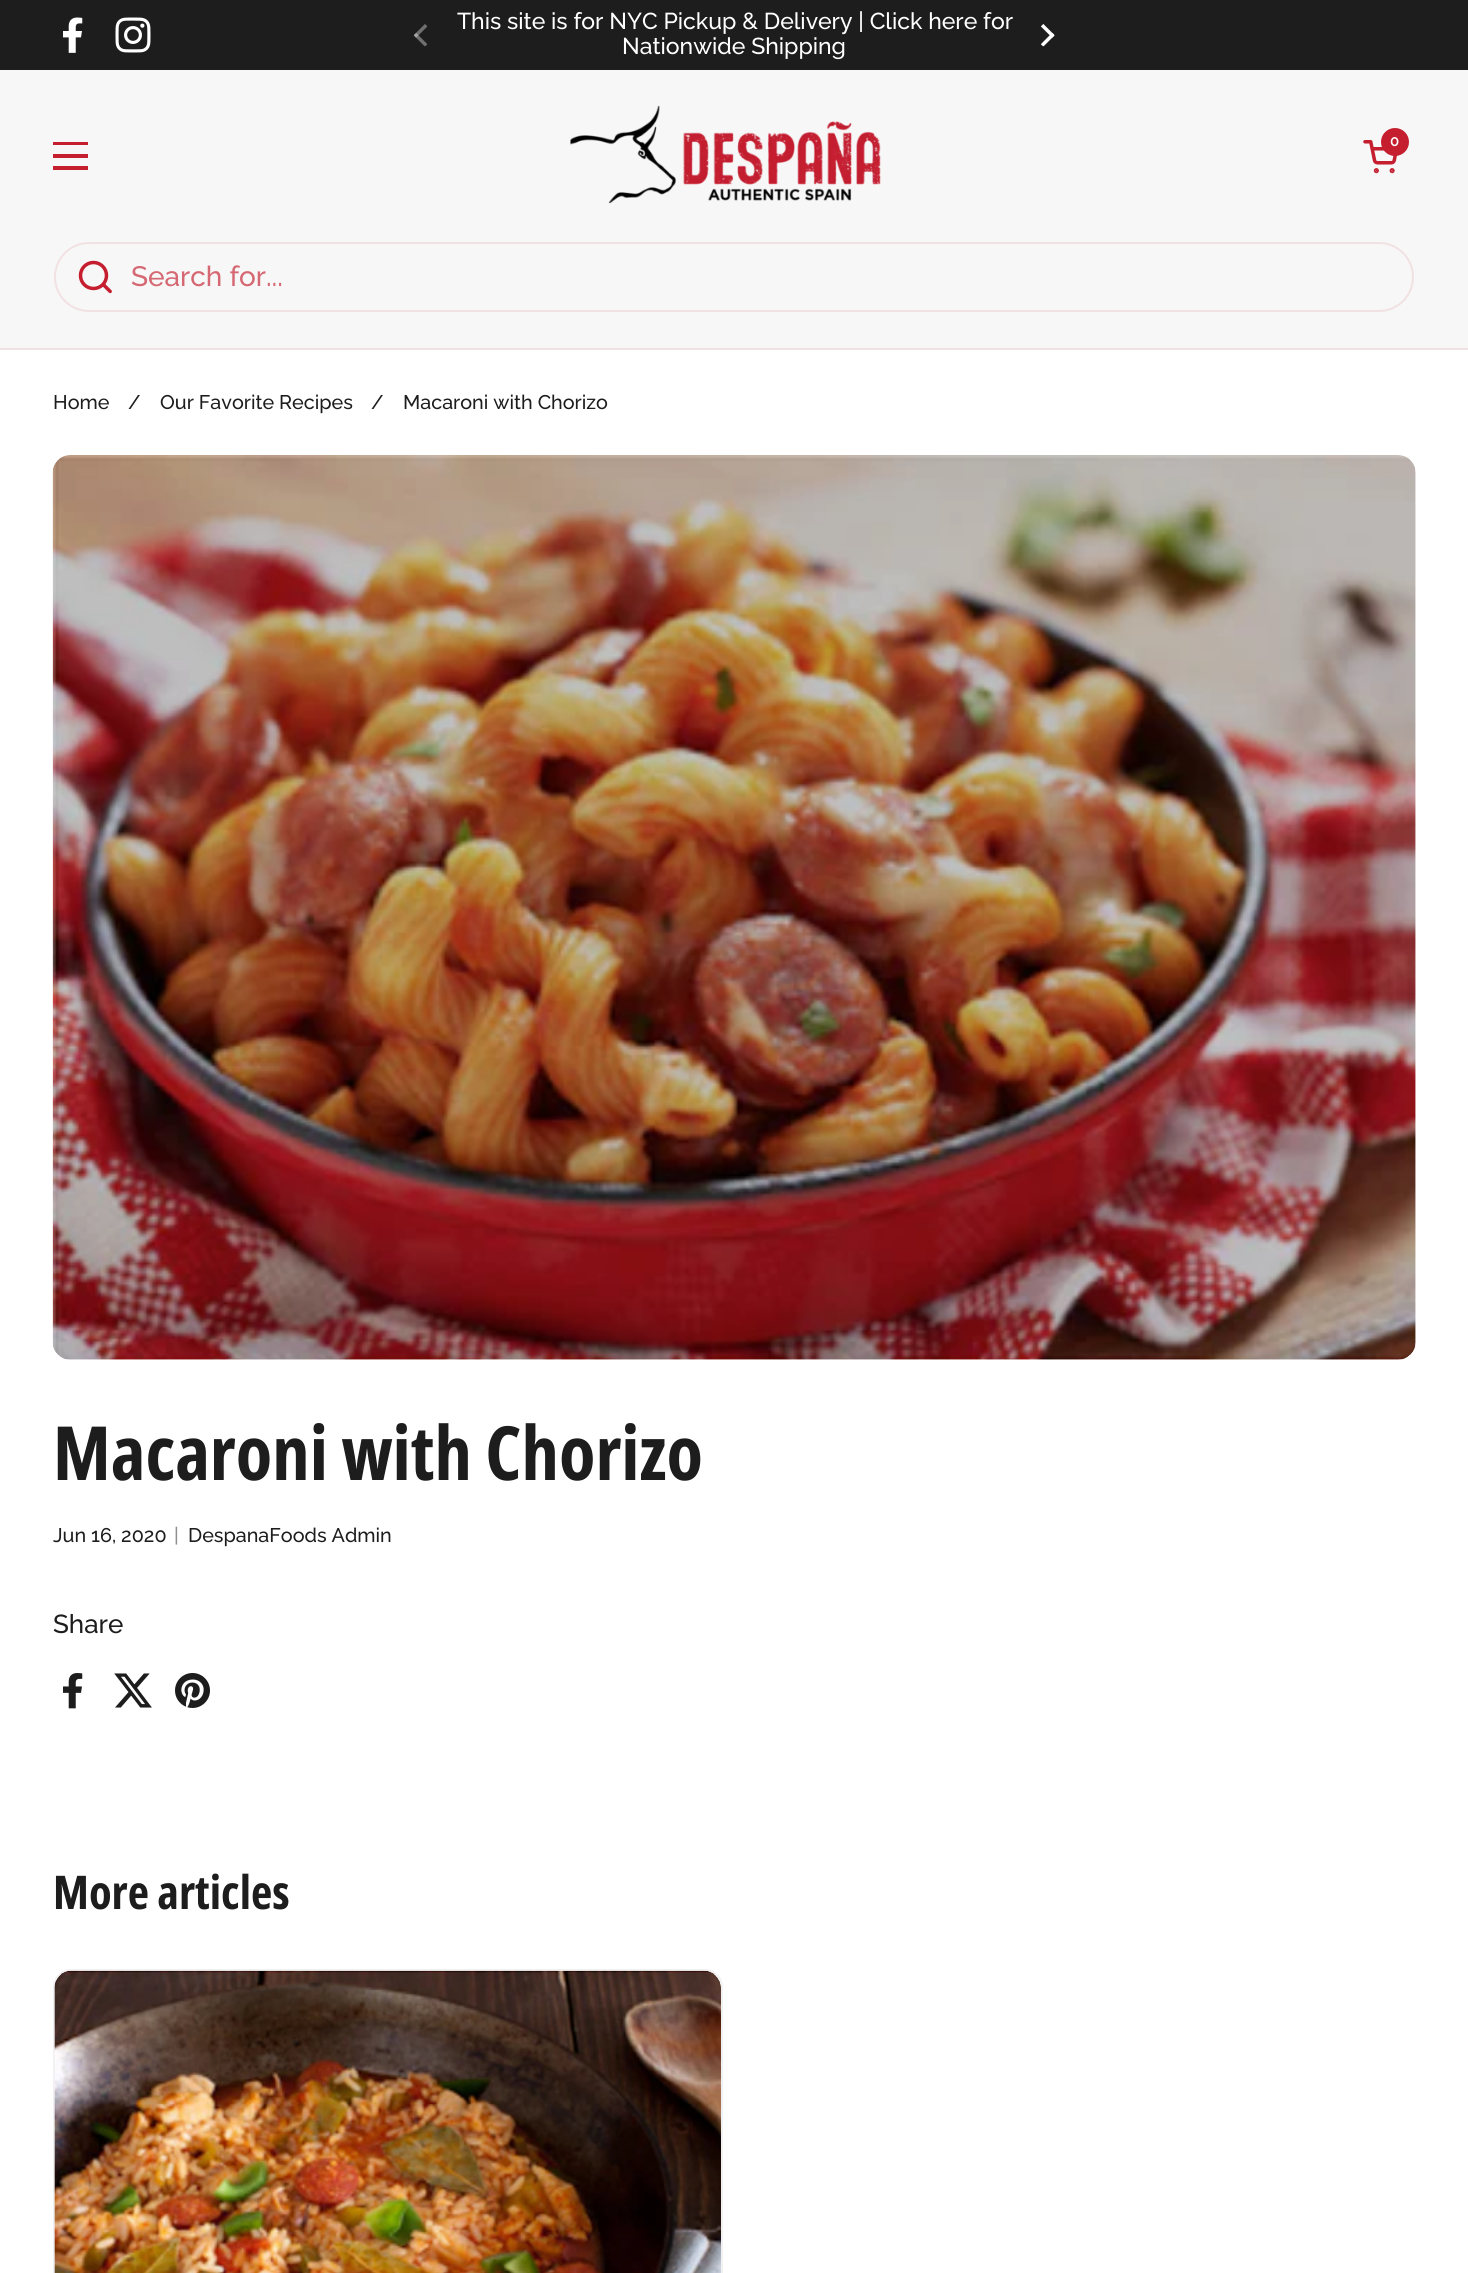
#include <cairo.h>
#include <math.h>
#include <stddef.h>

static cairo_t *c;
static void C(unsigned color){cairo_set_source_rgb(c, (color >> 16) / 255.0, (color >> 8 & 255) / 255.0, (color & 255) / 255.0);}
static void F(const char *family, double size, int italic, int bold){cairo_select_font_face(c, family, italic ? CAIRO_FONT_SLANT_ITALIC : CAIRO_FONT_SLANT_NORMAL,bold ? CAIRO_FONT_WEIGHT_BOLD : CAIRO_FONT_WEIGHT_NORMAL);cairo_set_font_size(c, size);}
static void T(double x, double y, const char *s){cairo_move_to(c, x, y);cairo_show_text(c, s);}
static void R(double x, double y, double w, double h){cairo_rectangle(c, x, y, w, h);cairo_fill(c);}
static void Q(double x, double y, double w, double h, double r){cairo_new_sub_path(c);cairo_arc(c, x + w - r, y + h - r, r, 0, M_PI / 2);cairo_arc(c, x + r, y + h - r, r, M_PI / 2, M_PI);cairo_arc(c, x + r, y + r, r, M_PI, 1.5 * M_PI);cairo_arc(c, x + w - r, y + r, r, 1.5 * M_PI, 2 * M_PI);cairo_close_path(c);}
static void I(const char *path, double x, double y, double w, double h){cairo_surface_t *image = cairo_image_surface_create_from_png(path);cairo_save(c);cairo_set_source_surface(c, image, x, y);cairo_rectangle(c, x, y, w, h);cairo_fill(c);cairo_restore(c);cairo_surface_destroy(image);}
int main(void) {
cairo_surface_t *surface = cairo_image_surface_create(CAIRO_FORMAT_RGB24, 1468, 2273);
c = cairo_create(surface);
cairo_font_options_t *options = cairo_font_options_create();
cairo_font_options_set_hint_metrics(options, CAIRO_HINT_METRICS_OFF);
cairo_font_options_set_hint_style(options, CAIRO_HINT_STYLE_NONE);
cairo_set_font_options(c, options);
cairo_set_miter_limit(c, 4);
C(0xffffff);
cairo_paint(c);
C(0x1d1d1d);
R(0,0,1468,70);
I("1.png",63,17,20,36);
I("2.png",115,17,36,36);
I("3.png",413,24,15,23);
F("Raleway Medium",23,0,0);
C(0xffffff);
T(457,29,"This site is for NYC Pickup & Delivery | Click here for");
T(622,54,"Nationwide Shipping");
I("4.png",1041,24,14,23);
C(0xf7f7f7);
R(0,70,1468,278);
C(0xc41e2f);
R(53,142,35,3);
R(53,154,35,4);
R(53,166,35,4);
I("5.png",570,105,311,99);
I("6.png",1363,140,34,34);
cairo_arc(c,1395,142,14,0,2 * M_PI);
cairo_fill(c);
F("Raleway SemiBold",15,0,0);
C(0xffffff);
T(1390,146,"0");
C(0xf2e1e3);
R(0,348,1468,2);
Q(55,243,1358,68,34);
cairo_stroke(c);
I("7.png",78,260,34,34);
F("Raleway Medium",28,0,0);
C(0xd56873);
T(131,286,"Search for...");
F("Raleway Medium",19.75,0,0);
C(0x1d1d1d);
T(53,409,"Home");
T(128,409,"/");
T(160,409,"Our Favorite Recipes");
T(371,409,"/");
T(403,409,"Macaroni with Chorizo");
I("8.png",52,455,1364,905);
F("Open Sans Condensed",74.75,0,1);
T(53,1480,"Macaroni with Chorizo");
F("Raleway Medium",19.75,0,0);
T(53,1542,"Jun 16, 2020");
C(0x8e8e8e);
T(174,1542,"|");
C(0x1d1d1d);
T(188,1542,"DespanaFoods Admin");
F("Raleway Medium",26,0,0);
T(53,1633,"Share");
I("9.png",63,1673,20,36);
I("10.png",114,1673,38,35);
I("11.png",175,1673,35,35);
F("Open Sans Condensed",46.5,0,1);
T(53,1909,"More articles");
Q(54,1970,668,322,17);
C(0xf1f1f1);
cairo_stroke(c);
I("12.png",54,1970,667,303);
cairo_surface_write_to_png(surface, "o.png");
cairo_font_options_destroy(options);
cairo_destroy(c);
cairo_surface_destroy(surface);
return 0;
}
